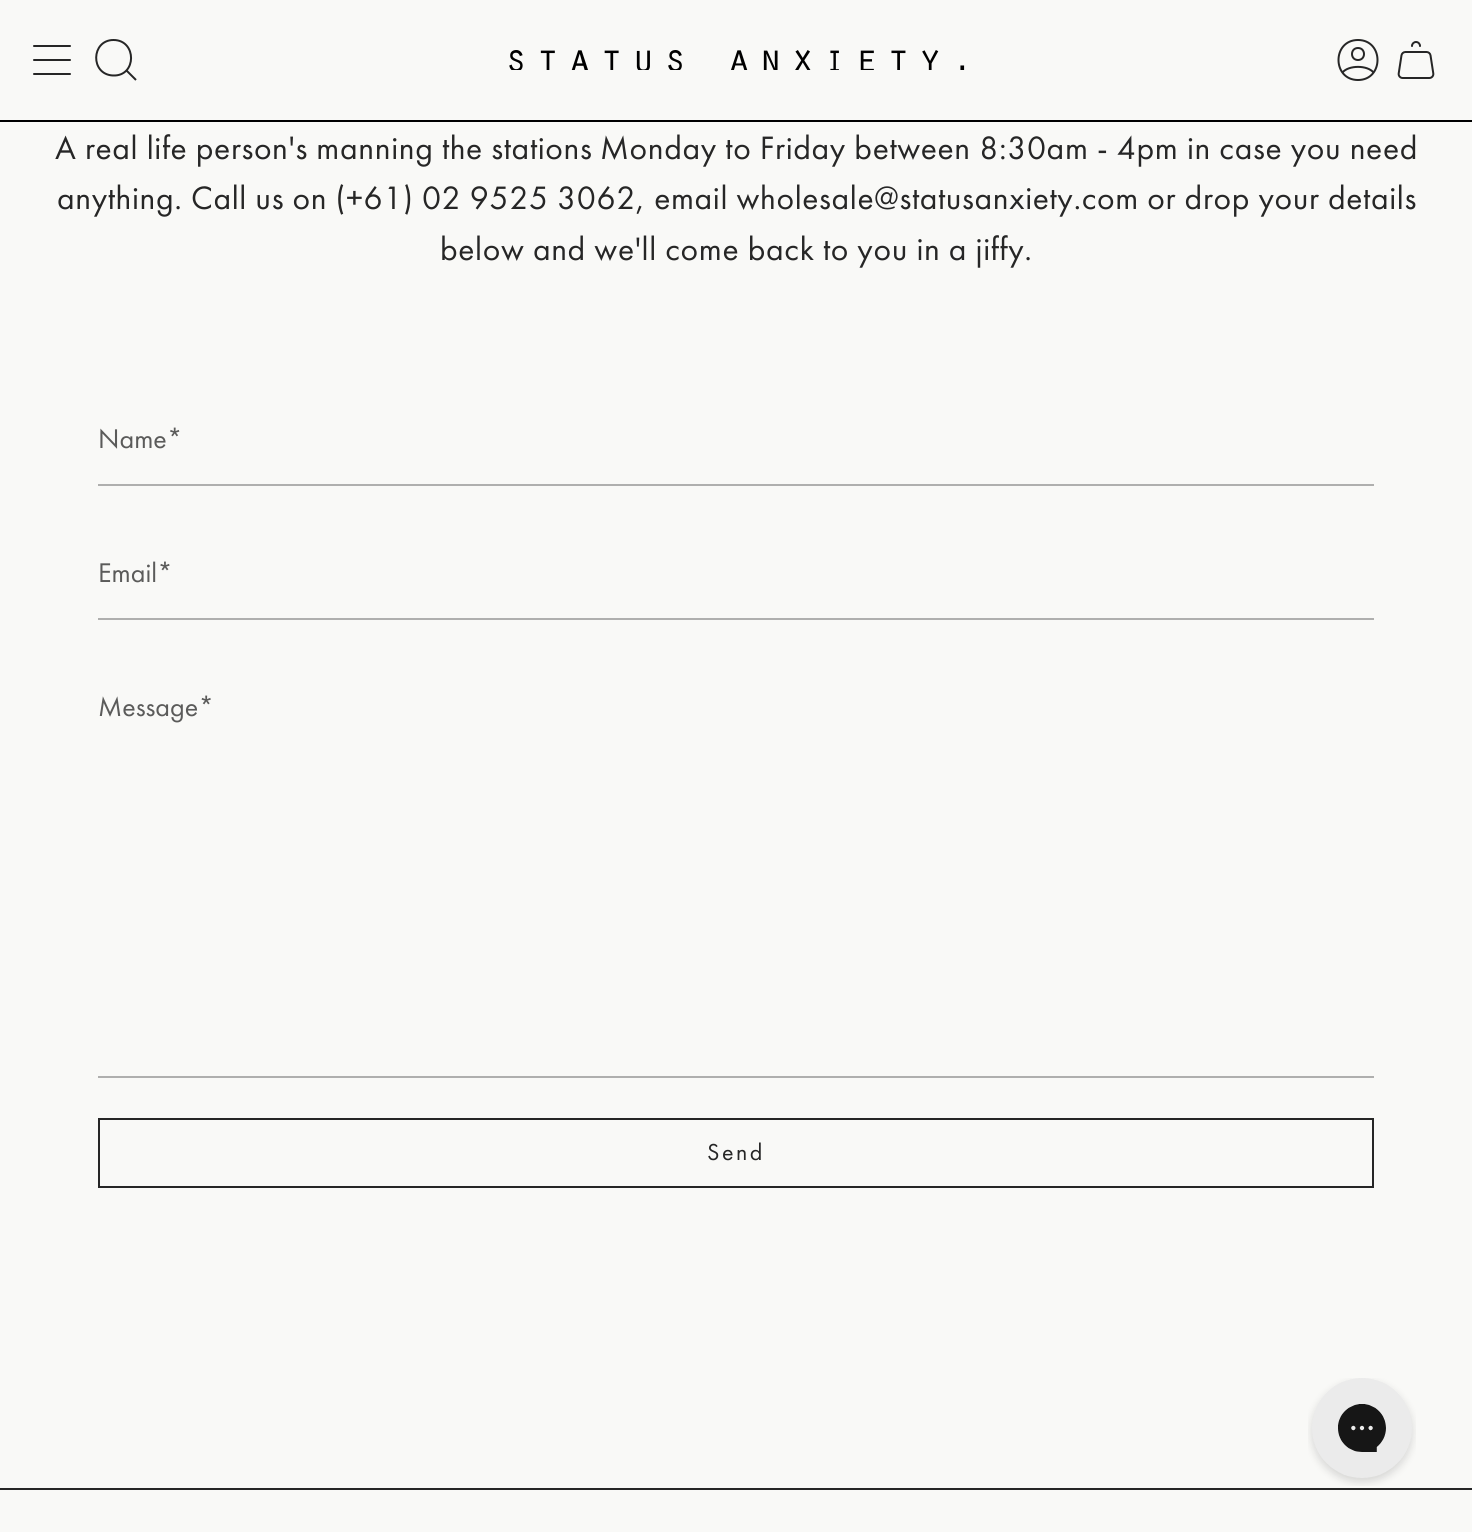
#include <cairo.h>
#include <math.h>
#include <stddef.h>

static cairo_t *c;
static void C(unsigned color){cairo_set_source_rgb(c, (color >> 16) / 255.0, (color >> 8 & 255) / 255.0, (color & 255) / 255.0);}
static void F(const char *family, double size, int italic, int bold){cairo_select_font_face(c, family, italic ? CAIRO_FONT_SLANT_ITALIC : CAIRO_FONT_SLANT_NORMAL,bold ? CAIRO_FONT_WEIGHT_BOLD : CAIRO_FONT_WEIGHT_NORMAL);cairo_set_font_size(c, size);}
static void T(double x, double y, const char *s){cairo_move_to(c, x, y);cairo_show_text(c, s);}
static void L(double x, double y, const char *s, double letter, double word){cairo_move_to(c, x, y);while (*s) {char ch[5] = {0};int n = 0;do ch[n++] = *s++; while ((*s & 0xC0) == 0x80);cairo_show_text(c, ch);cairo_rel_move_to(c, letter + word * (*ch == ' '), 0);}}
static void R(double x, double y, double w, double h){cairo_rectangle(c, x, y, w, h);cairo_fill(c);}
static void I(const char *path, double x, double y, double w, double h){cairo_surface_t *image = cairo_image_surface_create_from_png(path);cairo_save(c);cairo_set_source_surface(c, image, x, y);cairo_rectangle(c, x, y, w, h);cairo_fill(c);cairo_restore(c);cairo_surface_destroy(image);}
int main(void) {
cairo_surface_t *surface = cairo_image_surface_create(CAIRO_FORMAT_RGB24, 1472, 1532);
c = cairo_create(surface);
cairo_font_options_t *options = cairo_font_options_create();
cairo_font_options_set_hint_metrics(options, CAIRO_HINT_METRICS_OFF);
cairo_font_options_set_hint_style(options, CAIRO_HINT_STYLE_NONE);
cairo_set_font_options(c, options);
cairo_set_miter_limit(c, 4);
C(0xf9f9f7);
cairo_paint(c);
C(0x000000);
R(0,120,1472,2);
cairo_new_path(c);
cairo_move_to(c,34,46);
cairo_line_to(c,70,46);
cairo_move_to(c,34,60);
cairo_line_to(c,70,60);
cairo_move_to(c,34,74);
cairo_line_to(c,70,74);
C(0x262626);
cairo_set_line_cap(c,CAIRO_LINE_CAP_ROUND);
cairo_set_line_join(c,CAIRO_LINE_JOIN_ROUND);
cairo_stroke(c);
cairo_new_path(c);
cairo_move_to(c,113.5,40);
cairo_curve_to(c,137,40,137,76.5,113,75.5);
cairo_curve_to(c,90,74.5,91,40,113.5,40);
cairo_close_path(c);
cairo_move_to(c,126,70);
cairo_line_to(c,136,80);
cairo_set_line_cap(c,CAIRO_LINE_CAP_BUTT);
cairo_set_line_join(c,CAIRO_LINE_JOIN_MITER);
cairo_stroke(c);
I("1.png",509,50,456,20);
cairo_new_path(c);
cairo_move_to(c,1358,40);
cairo_curve_to(c,1332,40,1332,80,1358,80);
cairo_curve_to(c,1384,80,1384,40,1358,40);
cairo_close_path(c);
cairo_move_to(c,1342.5,72.5);
cairo_curve_to(c,1348.5,65,1367.5,65,1373.5,72.5);
cairo_move_to(c,1358,60);
cairo_curve_to(c,1366,60,1366,48,1358,48);
cairo_curve_to(c,1350,48,1350,60,1358,60);
cairo_close_path(c);
cairo_set_line_cap(c,CAIRO_LINE_CAP_ROUND);
cairo_set_line_join(c,CAIRO_LINE_JOIN_ROUND);
cairo_stroke(c);
I("2.png",1397,41,38,38);
F("Futura PT",33.6,0,0);
L(55,159,"A real life person's manning the stations",.62,0);
L(600,159,"Monday to Friday between 8:30am - 4pm in case you need",.62,0);
L(57,209,"anything. Call us on (+61) 02 9525 3062, email wholesale@statusanxiety.com or drop your details",.62,0);
L(440,260,"below and we'll come back to you in a jiffy.",.62,0);
C(0xafafae);
R(98,484,1276,2);
F("Futura PT",28,0,0);
C(0x5b5b5a);
T(98,448,"Name*");
C(0xafafae);
R(98,618,1276,2);
C(0x5b5b5a);
T(98,582,"Email*");
C(0xafafae);
R(98,1076,1276,2);
C(0x5b5b5a);
T(98,716,"Message*");
cairo_rectangle(c,99,1119,1274,68);
C(0x262626);
cairo_set_line_cap(c,CAIRO_LINE_CAP_BUTT);
cairo_set_line_join(c,CAIRO_LINE_JOIN_MITER);
cairo_stroke(c);
F("Futura PT",24,0,0);
L(707,1160,"Send",2.5,0);
I("3.png",1308,1378,108,108);
R(0,1488,1472,2);
cairo_surface_write_to_png(surface, "o.png");
cairo_font_options_destroy(options);
cairo_destroy(c);
cairo_surface_destroy(surface);
return 0;
}
